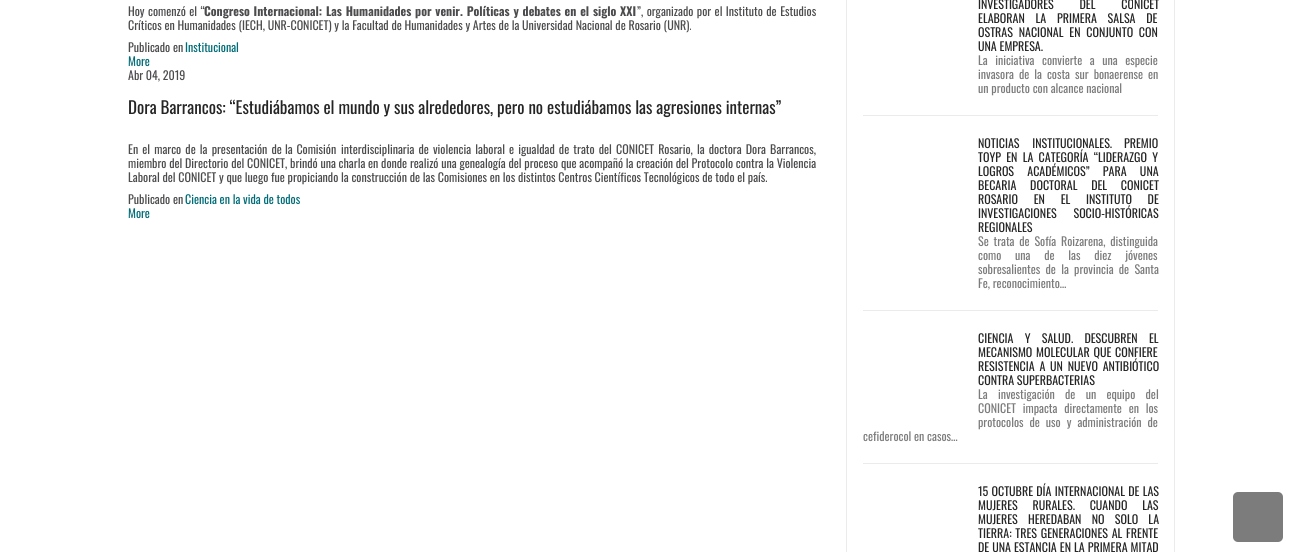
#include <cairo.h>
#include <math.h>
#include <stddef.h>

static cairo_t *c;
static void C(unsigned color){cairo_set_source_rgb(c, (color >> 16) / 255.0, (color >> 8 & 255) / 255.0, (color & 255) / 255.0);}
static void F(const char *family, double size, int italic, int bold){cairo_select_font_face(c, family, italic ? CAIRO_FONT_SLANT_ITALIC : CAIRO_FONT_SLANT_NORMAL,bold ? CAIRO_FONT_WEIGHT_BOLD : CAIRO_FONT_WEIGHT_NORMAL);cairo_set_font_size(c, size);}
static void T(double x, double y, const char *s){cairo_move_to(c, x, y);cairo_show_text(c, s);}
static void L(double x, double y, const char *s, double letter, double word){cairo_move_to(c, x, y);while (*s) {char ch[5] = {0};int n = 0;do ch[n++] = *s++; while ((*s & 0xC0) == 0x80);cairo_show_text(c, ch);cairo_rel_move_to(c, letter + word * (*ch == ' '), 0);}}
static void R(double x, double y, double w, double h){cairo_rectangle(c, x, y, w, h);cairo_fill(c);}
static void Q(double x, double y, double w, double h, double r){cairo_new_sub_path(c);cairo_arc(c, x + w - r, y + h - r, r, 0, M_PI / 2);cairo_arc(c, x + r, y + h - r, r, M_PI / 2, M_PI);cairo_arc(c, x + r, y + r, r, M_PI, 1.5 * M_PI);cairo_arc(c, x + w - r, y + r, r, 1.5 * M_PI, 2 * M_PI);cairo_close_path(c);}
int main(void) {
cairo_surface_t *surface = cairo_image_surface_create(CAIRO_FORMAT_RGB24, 1303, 552);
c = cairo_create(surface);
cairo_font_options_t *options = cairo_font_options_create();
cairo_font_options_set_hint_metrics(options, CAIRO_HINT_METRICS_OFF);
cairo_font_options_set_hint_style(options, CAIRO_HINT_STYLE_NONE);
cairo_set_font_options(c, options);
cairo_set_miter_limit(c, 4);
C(0xffffff);
cairo_paint(c);
F("Oswald",12,0,0);
C(0x4c4c4e);
L(128,16,"Hoy comenzó el “",0,.75);
F("Oswald",12,0,1);
L(204,16,"Congreso Internacional: Las Humanidades por venir. Políticas y debates en el siglo XXI",0,.75);
F("Oswald",12,0,0);
L(637,16,"”, organizado por el Instituto de Estudios",0,.75);
T(128,30,"Críticos en Humanidades (IECH, UNR-CONICET) y la Facultad de Humanidades y Artes de la Universidad Nacional de Rosario (UNR).");
T(128,52,"Publicado en");
C(0x006c77);
T(185,52,"Institucional");
T(128,66,"More");
C(0x4c4c4e);
T(128,80,"Abr 04, 2019");
F("Oswald",17,0,0);
C(0x252525);
T(128,114,"Dora Barrancos: “Estudiábamos el mundo y sus alrededores, pero no estudiábamos las agresiones internas”");
F("Oswald",12,0,0);
C(0x4c4c4e);
L(128,154,"En el marco de la presentación de",0,1.4);
L(285,154,"la Comisión",0,1);
L(341,154,"interdisciplinaria de violencia laboral e igualdad de trato del CONICET Rosario, la doctora Dora Barrancos,",0,1.4);
T(128,168,"miembro del Directorio del CONICET, brindó una charla en donde realizó una genealogía del proceso que acompañó la creación del Protocolo contra la Violencia");
T(128,182,"Laboral del CONICET y que luego fue propiciando la construcción de las Comisiones en los distintos Centros Científicos Tecnológicos de todo el país.");
T(128,204,"Publicado en");
C(0x006c77);
T(185,204,"Ciencia en la vida de todos");
T(128,218,"More");
cairo_rectangle(c,846.5,-.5,328,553);
C(0xebebeb);
cairo_set_line_width(c,1);
cairo_stroke(c);
C(0x252525);
L(978,9,"INVESTIGADORES DEL CONICET",0,23);
L(978,23,"ELABORAN LA PRIMERA SALSA DE",0,8);
L(978,37,"OSTRAS NACIONAL EN CONJUNTO CON",0,3);
T(978,51,"UNA EMPRESA.");
C(0x7c7c7c);
L(978,65,"La iniciativa convierte a una especie",0,4.75);
L(978,79,"invasora de la costa sur bonaerense en",0,2.25);
T(978,93,"un producto con alcance nacional");
C(0xebebeb);
R(863,115,295,1);
C(0x252525);
L(978,148,"NOTICIAS INSTITUCIONALES.",0,10);
T(1124,148,"PREMIO");
L(978,162,"TOYP EN LA CATEGORÍA “LIDERAZGO Y",0,2.5);
L(978,176,"LOGROS ACADÉMICOS” PARA UNA",0,10.5);
L(978,190,"BECARIA DOCTORAL DEL CONICET",0,11);
L(978,204,"ROSARIO EN EL INSTITUTO DE",0,13);
L(978,218,"INVESTIGACIONES SOCIO-HISTÓRICAS",0,14);
T(978,232,"REGIONALES");
C(0x7c7c7c);
L(978,246,"Se trata de Sofía Roizarena, distinguida",0,2);
L(978,260,"como una de las diez jóvenes",0,11);
L(978,274,"sobresalientes de la provincia de Santa",0,2.5);
T(978,288,"Fe, reconocimiento…");
C(0xebebeb);
R(863,310,295,1);
C(0x252525);
L(978,343,"CIENCIA Y SALUD. DESCUBREN EL",0,8.5);
L(978,357,"MECANISMO MOLECULAR QUE CONFIERE",0,1);
L(978,371,"RESISTENCIA A UN NUEVO ANTIBIÓTICO",0,2);
T(978,385,"CONTRA SUPERBACTERIAS");
C(0x7c7c7c);
L(978,399,"La investigación de un equipo del",0,7.5);
L(978,413,"CONICET impacta directamente en los",0,4);
L(978,427,"protocolos de uso y administración de",0,3.25);
T(863,441,"cefiderocol en casos…");
C(0xebebeb);
R(863,463,295,1);
C(0x252525);
L(978,496,"15 OCTUBRE DÍA INTERNACIONAL DE LAS",0,.5);
L(978,510,"MUJERES RURALES. CUANDO LAS",0,12);
L(978,524,"MUJERES HEREDABAN NO SOLO LA",0,7.5);
L(978,538,"TIERRA: TRES GENERACIONES AL FRENTE",0,1);
L(978,552,"DE UNA ESTANCIA EN LA PRIMERA MITAD",0,.25);
C(0x7c7c7c);
Q(1233,492,50,50,5);
cairo_fill(c);
cairo_surface_write_to_png(surface, "o.png");
cairo_font_options_destroy(options);
cairo_destroy(c);
cairo_surface_destroy(surface);
return 0;
}
